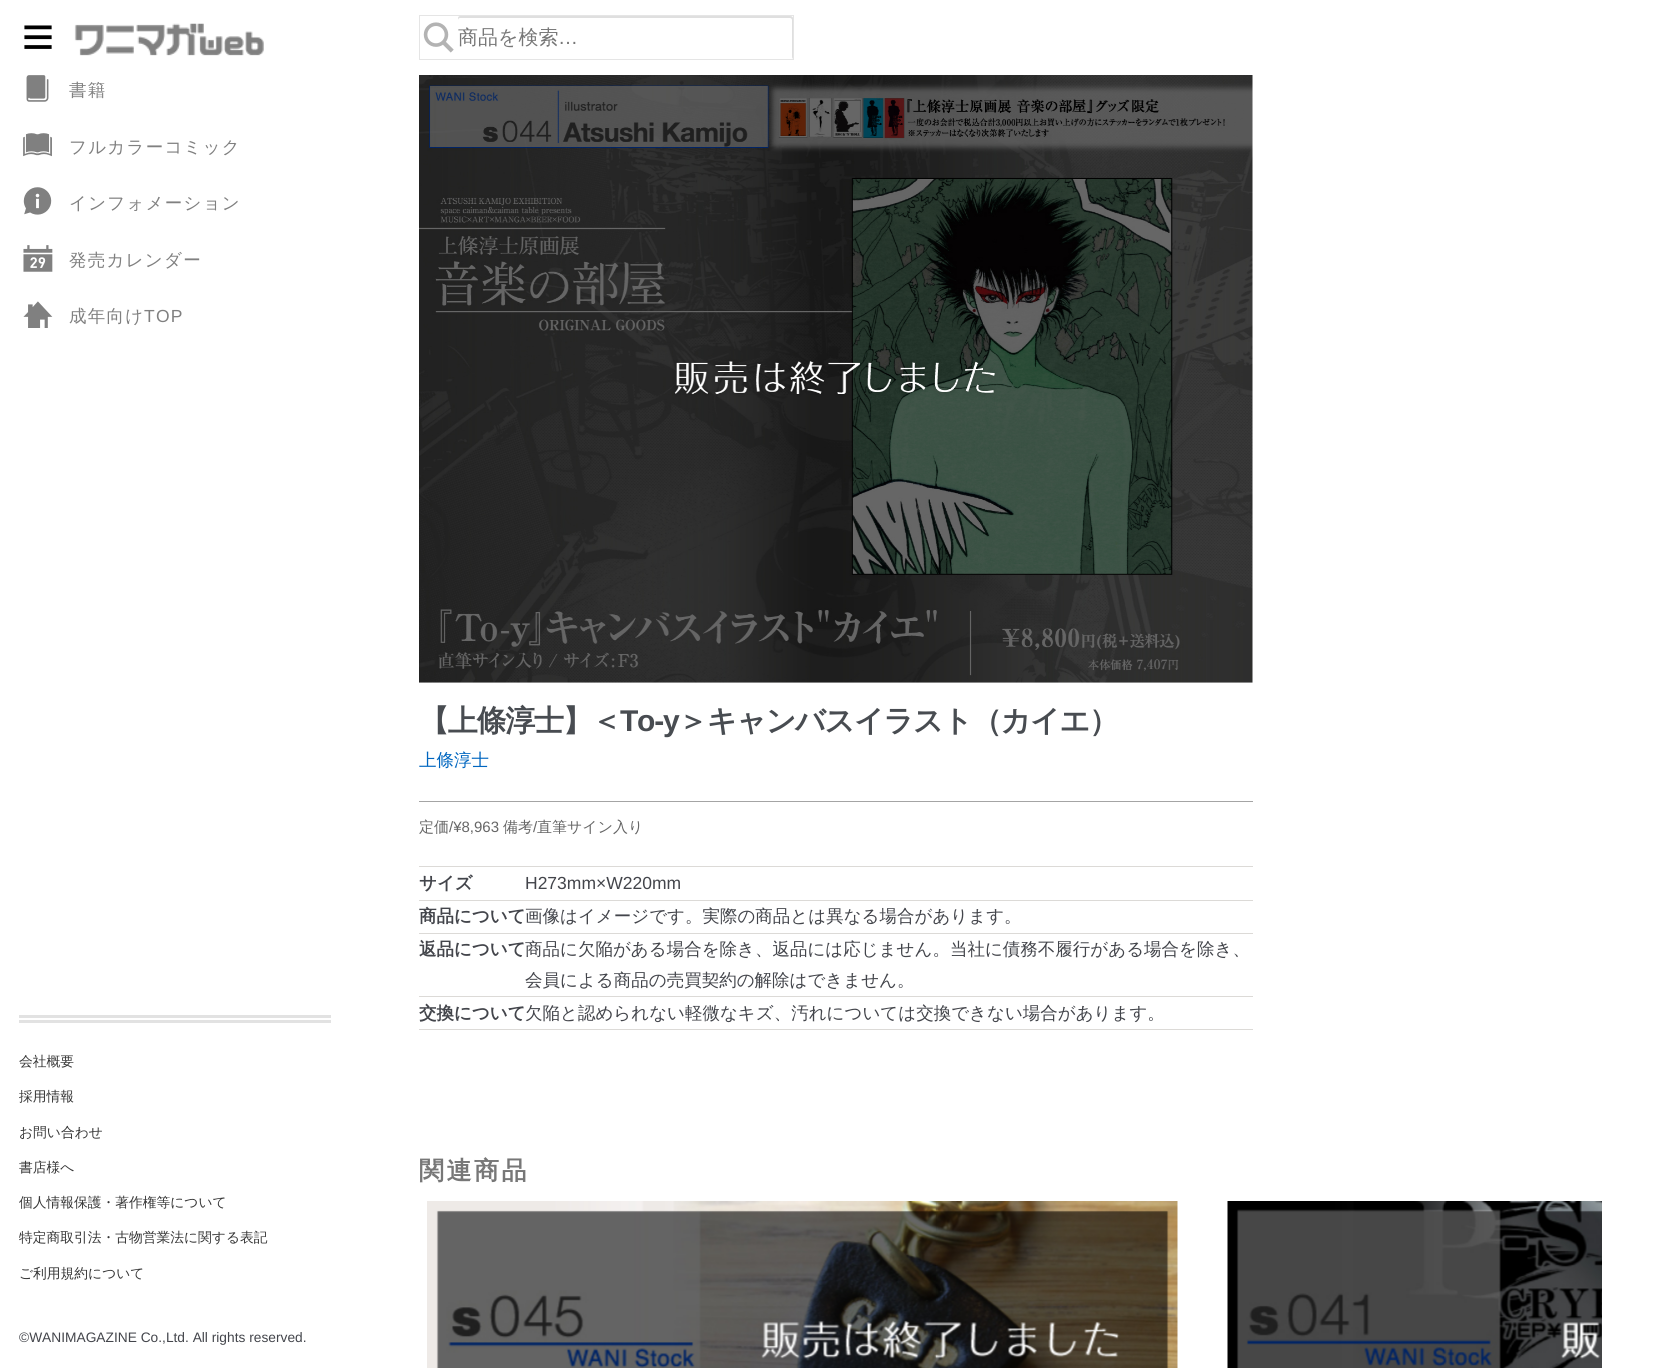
#include <cairo.h>
#include <math.h>
#include <stddef.h>

static cairo_t *c;
static void C(unsigned color){cairo_set_source_rgb(c, (color >> 16) / 255.0, (color >> 8 & 255) / 255.0, (color & 255) / 255.0);}
static void F(const char *family, double size, int italic, int bold){cairo_select_font_face(c, family, italic ? CAIRO_FONT_SLANT_ITALIC : CAIRO_FONT_SLANT_NORMAL,bold ? CAIRO_FONT_WEIGHT_BOLD : CAIRO_FONT_WEIGHT_NORMAL);cairo_set_font_size(c, size);}
static void T(double x, double y, const char *s){cairo_move_to(c, x, y);cairo_show_text(c, s);}
static void L(double x, double y, const char *s, double letter, double word){cairo_move_to(c, x, y);while (*s) {char ch[5] = {0};int n = 0;do ch[n++] = *s++; while ((*s & 0xC0) == 0x80);cairo_show_text(c, ch);cairo_rel_move_to(c, letter + word * (*ch == ' '), 0);}}
static void R(double x, double y, double w, double h){cairo_rectangle(c, x, y, w, h);cairo_fill(c);}
static void I(const char *path, double x, double y, double w, double h){cairo_surface_t *image = cairo_image_surface_create_from_png(path);cairo_save(c);cairo_set_source_surface(c, image, x, y);cairo_rectangle(c, x, y, w, h);cairo_fill(c);cairo_restore(c);cairo_surface_destroy(image);}
int main(void) {
cairo_surface_t *surface = cairo_image_surface_create(CAIRO_FORMAT_RGB24, 1671, 1368);
c = cairo_create(surface);
cairo_font_options_t *options = cairo_font_options_create();
cairo_font_options_set_hint_metrics(options, CAIRO_HINT_METRICS_OFF);
cairo_font_options_set_hint_style(options, CAIRO_HINT_STYLE_NONE);
cairo_set_font_options(c, options);
cairo_set_miter_limit(c, 4);
C(0xffffff);
cairo_paint(c);
I("1.png",24,25,28,24);
I("2.png",74,23,190,33);
cairo_rectangle(c,419.5,15.5,374,44);
C(0xe5e5e5);
cairo_set_line_width(c,1);
cairo_stroke(c);
I("3.png",423,22,31,31);
C(0xdfdfdf);
cairo_new_path(c);
cairo_move_to(c,460,18);
cairo_line_to(c,790,18);
cairo_curve_to(c,791,18,792,19,792,20);
cairo_line_to(c,792,59);
cairo_curve_to(c,793,58,793,57,793,56);
cairo_line_to(c,793,18);
cairo_curve_to(c,793,17,792,16,790,16);
cairo_line_to(c,460,16);
cairo_curve_to(c,459,16,458,17,458,18);
cairo_line_to(c,458,20);
cairo_curve_to(c,458,19,459,18,460,18);
cairo_close_path(c);
cairo_fill(c);
F("WenQuanYi Zen Hei Medium",20,0,0);
C(0x777777);
T(458,44,"商品を検索");
F("Liberation Sans",20,0,0);
T(558,44,"…");
I("4.png",26,75,23,27);
F("WenQuanYi Zen Hei Medium",17.5,0,0);
C(0x808080);
L(69,96,"書籍",1.25,0);
I("5.png",23,133,29,24);
L(69,153,"フルカラーコミック",1.25,0);
I("6.png",23,187,29,28);
L(69,209,"インフォメーション",1.25,0);
I("7.png",23,245,30,27);
L(69,266,"発売カレンダー",1.25,0);
I("8.png",23,301,30,27);
L(69,322,"成年向け",1.25,0);
F("Liberation Sans",17.5,0,0);
L(144,322,"TOP",1.25,0);
C(0xe2e2e2);
R(19,1015,312,3);
R(19,1020,312,3);
F("WenQuanYi Zen Hei Medium",13.75,0,0);
C(0x363636);
T(19,1066,"会社概要");
T(19,1101,"採用情報");
T(19,1137,"お問い合わせ");
T(19,1172,"書店様へ");
T(19,1207,"個人情報保護・著作権等について");
T(19,1242,"特定商取引法・古物営業法に関する表記");
T(19,1278,"ご利用規約について");
F("Liberation Sans",13.75,0,0);
C(0x43454b);
T(19,1342,"©WANIMAGAZINE Co.,Ltd. All rights reserved.");
I("9.png",419,75,834,608);
F("WenQuanYi Zen Hei",30,0,1);
C(0x484c51);
L(419,731,"【上條淳士】＜",-1.25,0);
F("Liberation Sans",30,0,1);
L(620,731,"To-y",-1.25,0);
F("WenQuanYi Zen Hei",30,0,1);
L(678,731,"＞キャンバスイラスト（カイエ）",-1.25,0);
F("WenQuanYi Zen Hei Medium",17.5,0,0);
C(0x0066c0);
T(419,766,"上條淳士");
C(0xa4a4a4);
R(419,801,834,1);
F("WenQuanYi Zen Hei Medium",15,0,0);
C(0x666666);
T(419,832,"定価");
F("Liberation Sans",15,0,0);
T(449,832,"/¥8,963");
F("WenQuanYi Zen Hei Medium",15,0,0);
T(503,832,"備考");
F("Liberation Sans",15,0,0);
T(533,832,"/");
F("WenQuanYi Zen Hei Medium",15,0,0);
T(537,832,"直筆サイン入り");
C(0xdcdad7);
R(419,866,834,1);
F("WenQuanYi Zen Hei",17.5,0,1);
C(0x43454b);
T(419,889,"サイズ");
C(0xdcdad7);
R(419,900,834,1);
F("Liberation Sans",17.5,0,0);
C(0x43454b);
T(525,889,"H273mm×W220mm");
F("WenQuanYi Zen Hei",17.5,0,1);
T(419,922,"商品について");
C(0xdcdad7);
R(419,933,834,1);
F("WenQuanYi Zen Hei Medium",17.5,0,0);
C(0x43454b);
T(525,922,"画像はイメージです。実際の商品とは異なる場合があります。");
F("WenQuanYi Zen Hei",17.5,0,1);
T(419,955,"返品について");
C(0xdcdad7);
R(419,996,834,1);
F("WenQuanYi Zen Hei Medium",17.5,0,0);
C(0x43454b);
T(525,955,"商品に欠陥がある場合を除き、返品には応じません。当社に債務不履行がある場合を除き、");
T(525,986,"会員による商品の売買契約の解除はできません。");
F("WenQuanYi Zen Hei",17.5,0,1);
T(419,1019,"交換について");
C(0xdcdad7);
R(419,1029,834,1);
F("WenQuanYi Zen Hei Medium",17.5,0,0);
C(0x43454b);
T(525,1019,"欠陥と認められない軽微なキズ、汚れについては交換できない場合があります。");
F("WenQuanYi Zen Hei",25,0,1);
C(0x777777);
L(419,1179,"関連商品",2.5,0);
I("10.png",427,1201,751,167);
I("11.png",1227,1201,375,167);
cairo_surface_write_to_png(surface, "o.png");
cairo_font_options_destroy(options);
cairo_destroy(c);
cairo_surface_destroy(surface);
return 0;
}
